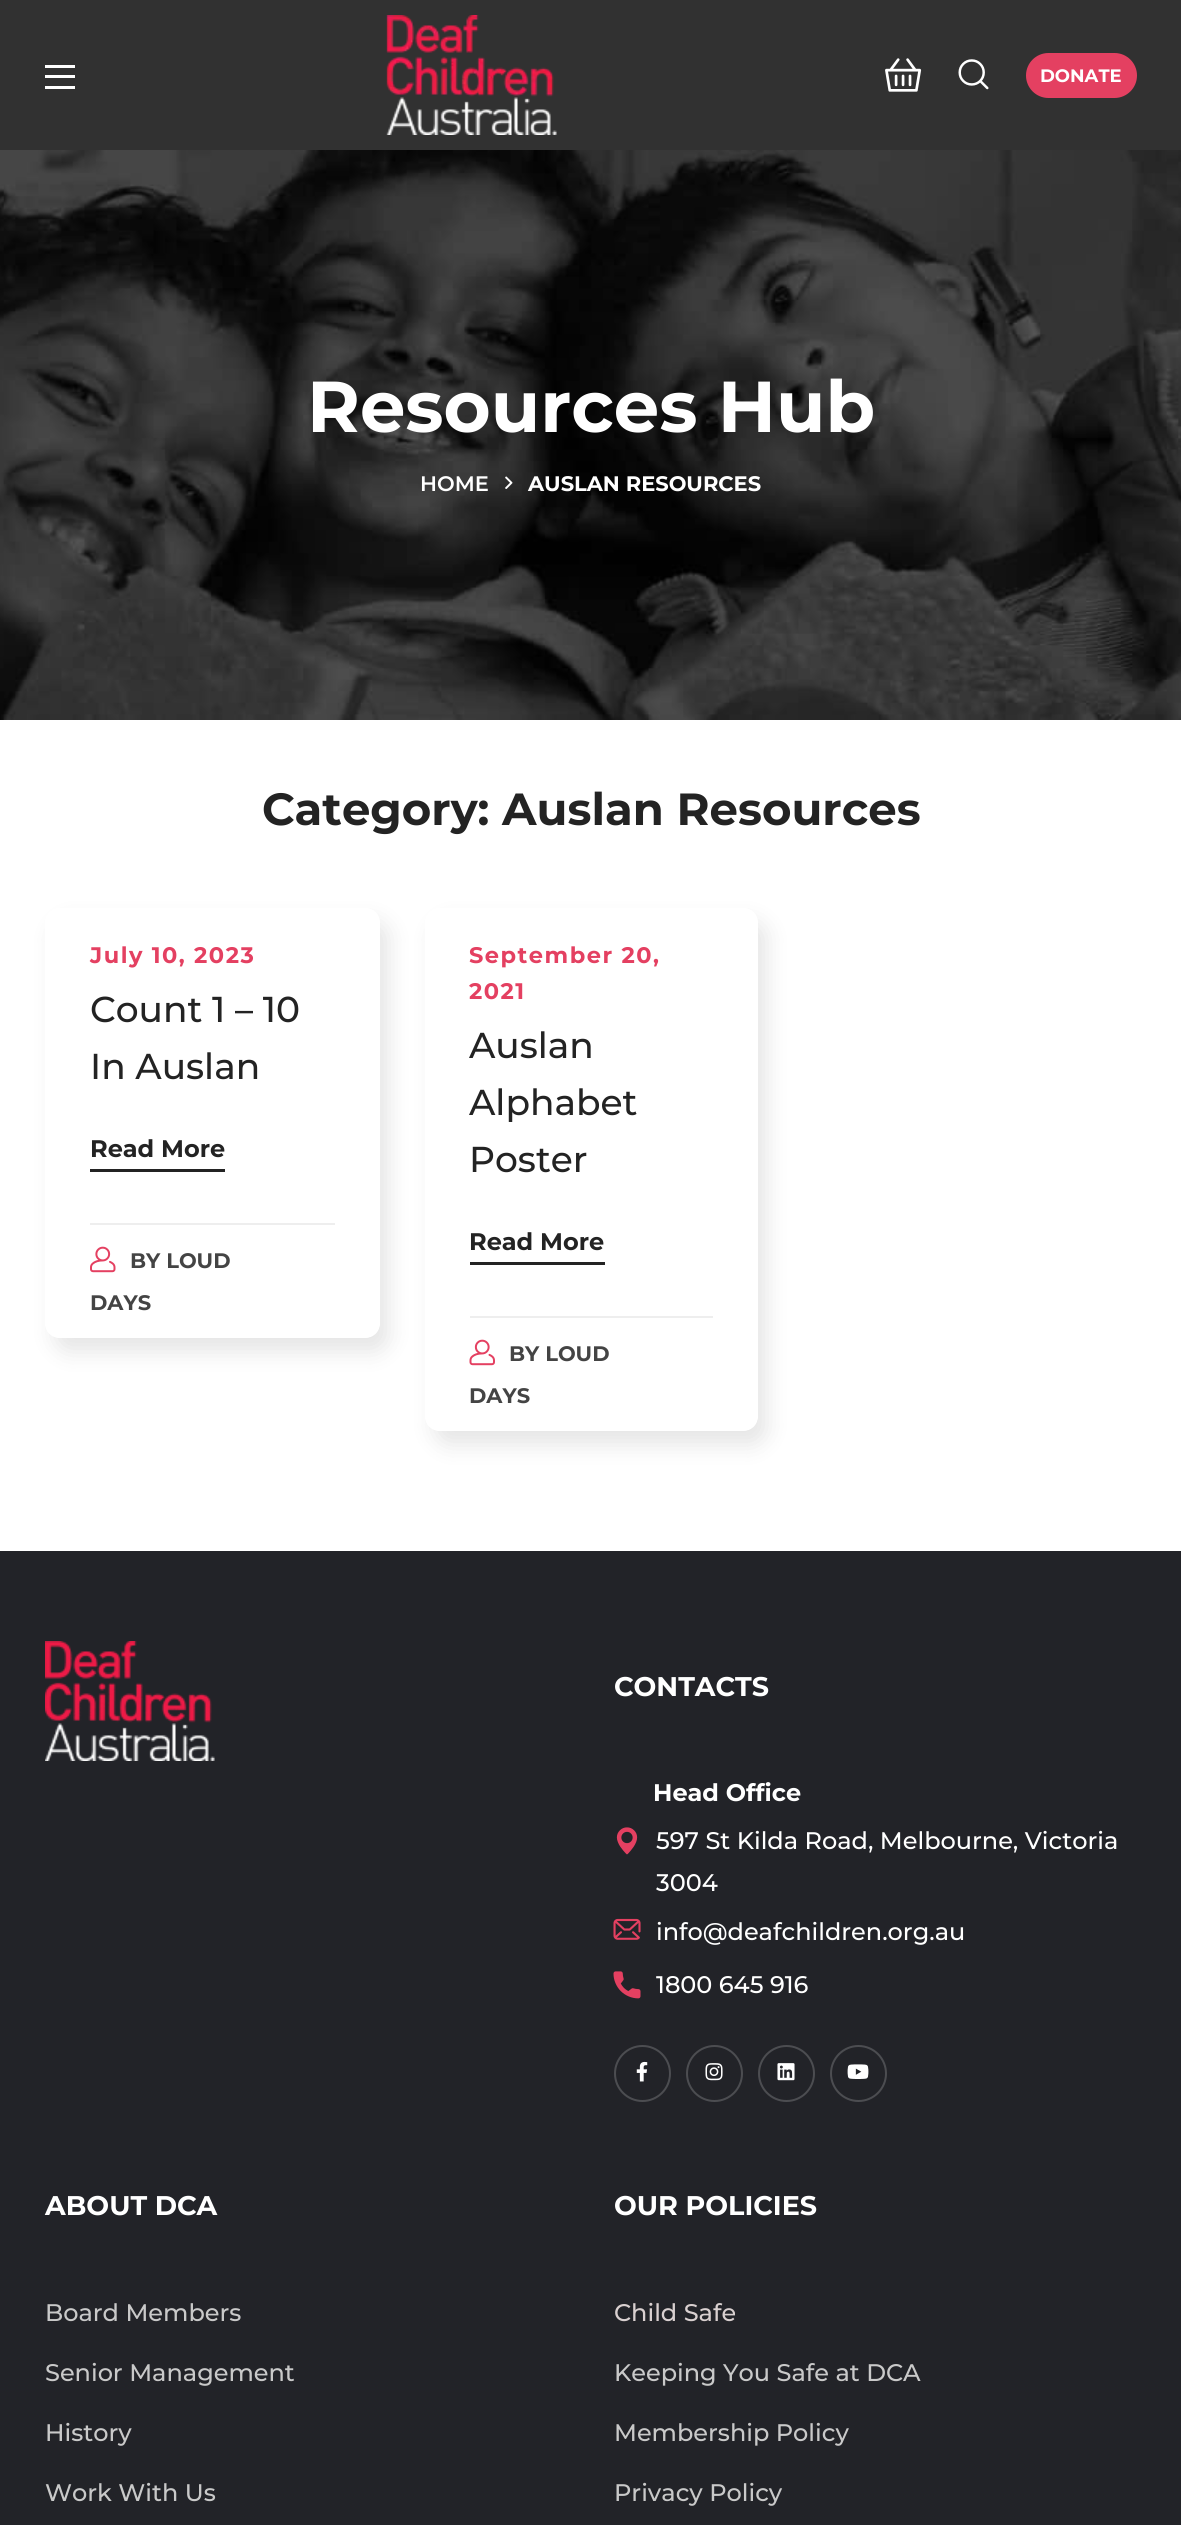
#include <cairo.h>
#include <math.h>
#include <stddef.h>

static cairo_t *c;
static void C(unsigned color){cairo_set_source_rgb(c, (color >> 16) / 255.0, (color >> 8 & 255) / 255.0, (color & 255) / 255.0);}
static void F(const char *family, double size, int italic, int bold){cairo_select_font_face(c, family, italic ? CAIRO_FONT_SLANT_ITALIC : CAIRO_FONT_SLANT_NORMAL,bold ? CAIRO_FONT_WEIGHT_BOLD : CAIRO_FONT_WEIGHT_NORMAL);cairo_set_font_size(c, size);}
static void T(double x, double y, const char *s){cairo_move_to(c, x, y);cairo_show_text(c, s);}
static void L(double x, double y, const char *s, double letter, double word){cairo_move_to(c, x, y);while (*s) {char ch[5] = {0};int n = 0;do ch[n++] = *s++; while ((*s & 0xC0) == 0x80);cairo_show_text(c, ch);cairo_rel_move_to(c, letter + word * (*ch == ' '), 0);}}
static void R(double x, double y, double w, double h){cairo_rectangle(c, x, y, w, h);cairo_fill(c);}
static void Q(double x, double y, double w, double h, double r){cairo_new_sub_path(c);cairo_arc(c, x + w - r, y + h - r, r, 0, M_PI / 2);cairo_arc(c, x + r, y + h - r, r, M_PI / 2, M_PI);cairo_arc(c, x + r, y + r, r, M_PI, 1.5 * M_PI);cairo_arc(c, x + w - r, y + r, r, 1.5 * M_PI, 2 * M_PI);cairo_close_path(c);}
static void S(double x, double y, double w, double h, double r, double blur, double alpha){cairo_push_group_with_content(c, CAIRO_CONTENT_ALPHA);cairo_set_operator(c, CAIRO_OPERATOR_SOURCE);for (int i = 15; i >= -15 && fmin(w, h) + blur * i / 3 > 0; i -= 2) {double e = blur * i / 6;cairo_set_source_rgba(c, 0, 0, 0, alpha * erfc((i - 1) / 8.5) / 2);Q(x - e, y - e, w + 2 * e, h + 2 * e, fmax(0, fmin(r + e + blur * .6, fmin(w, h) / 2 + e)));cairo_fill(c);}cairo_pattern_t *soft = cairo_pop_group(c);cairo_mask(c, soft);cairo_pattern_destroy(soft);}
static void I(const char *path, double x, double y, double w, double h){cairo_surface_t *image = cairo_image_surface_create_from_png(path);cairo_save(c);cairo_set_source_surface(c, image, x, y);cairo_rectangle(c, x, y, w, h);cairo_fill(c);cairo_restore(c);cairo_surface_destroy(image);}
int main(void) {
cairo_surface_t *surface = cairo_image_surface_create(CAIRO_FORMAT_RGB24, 1181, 2525);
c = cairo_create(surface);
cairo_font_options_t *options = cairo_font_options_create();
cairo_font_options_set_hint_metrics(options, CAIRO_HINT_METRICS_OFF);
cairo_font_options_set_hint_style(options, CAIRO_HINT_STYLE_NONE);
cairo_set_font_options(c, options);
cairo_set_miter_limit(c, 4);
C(0xffffff);
cairo_paint(c);
C(0x313131);
R(0,0,1181,150);
C(0xffffff);
R(45,65,30,3);
R(45,75,30,3);
R(45,86,30,3);
I("1.png",386,15,171,120);
I("2.png",885,58,37,34);
I("3.png",958,59,31,31);
C(0xe44061);
Q(1026,53,111,45,22.5);
cairo_fill(c);
F("Montserrat",18,0,1);
C(0xffffff);
T(1040,82,"DONATE");
I("4.png",0,150,1181,570);
F("Montserrat",72,0,1);
T(307,432,"Resources Hub");
F("Montserrat SemiBold",21,0,0);
T(420,491,"HOME");
I("5.png",505,476,8,13);
F("Montserrat",21,0,1);
T(528,491,"AUSLAN RESOURCES");
F("Montserrat",45,0,1);
C(0x232323);
T(262,825,"Category: Auslan Resources");
cairo_save(c);
cairo_set_fill_rule(c,CAIRO_FILL_RULE_EVEN_ODD);
cairo_new_path(c);
cairo_move_to(c,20,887);
cairo_line_to(c,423,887);
cairo_line_to(c,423,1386);
cairo_line_to(c,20,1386);
cairo_close_path(c);
cairo_move_to(c,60,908);
cairo_line_to(c,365,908);
cairo_curve_to(c,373.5,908,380,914.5,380,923);
cairo_line_to(c,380,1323);
cairo_curve_to(c,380,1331.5,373.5,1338,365,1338);
cairo_line_to(c,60,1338);
cairo_curve_to(c,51.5,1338,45,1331.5,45,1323);
cairo_line_to(c,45,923);
cairo_curve_to(c,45,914.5,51.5,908,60,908);
cairo_close_path(c);
cairo_clip(c);
C(0x000000);
S(54,921,335,431,15,11,.1);
cairo_restore(c);
F("Montserrat",22.5,0,1);
C(0xe44061);
L(90,963,"July 10, 2023",1.5,0);
F("Montserrat Medium",36,0,0);
C(0x232323);
T(90,1022,"Count 1 – 10");
T(90,1079,"In Auslan");
F("Montserrat",24,0,1);
T(90,1157,"Read More");
R(90,1169,135,3);
C(0xeeeeee);
R(90,1223,245,2);
I("6.png",90,1246,26,27);
F("Montserrat",21,0,1);
C(0x444444);
T(130,1268,"BY LOUD");
T(90,1310,"DAYS");
cairo_save(c);
cairo_set_fill_rule(c,CAIRO_FILL_RULE_EVEN_ODD);
cairo_new_path(c);
cairo_move_to(c,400,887);
cairo_line_to(c,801,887);
cairo_line_to(c,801,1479);
cairo_line_to(c,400,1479);
cairo_close_path(c);
cairo_move_to(c,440,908);
cairo_line_to(c,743,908);
cairo_curve_to(c,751.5,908,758,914.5,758,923);
cairo_line_to(c,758,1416);
cairo_curve_to(c,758,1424.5,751.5,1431,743,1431);
cairo_line_to(c,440,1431);
cairo_curve_to(c,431.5,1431,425,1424.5,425,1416);
cairo_line_to(c,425,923);
cairo_curve_to(c,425,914.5,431.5,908,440,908);
cairo_close_path(c);
cairo_clip(c);
C(0x000000);
S(434,921,333,524,15,11,.1);
cairo_restore(c);
F("Montserrat",22.5,0,1);
C(0xe44061);
L(469,963,"September 20,",1.5,0);
L(469,999,"2021",1.5,0);
F("Montserrat Medium",36,0,0);
C(0x232323);
T(469,1058,"Auslan");
T(469,1115,"Alphabet");
T(469,1172,"Poster");
F("Montserrat",24,0,1);
T(469,1250,"Read More");
R(470,1262,135,3);
C(0xeeeeee);
R(470,1316,243,2);
I("7.png",469,1339,26,27);
F("Montserrat",21,0,1);
C(0x444444);
T(509,1361,"BY LOUD");
T(469,1403,"DAYS");
C(0x222328);
R(0,1551,1181,974);
I("8.png",45,1641,170,120);
F("Montserrat",27,0,1);
C(0xffffff);
T(614,1696,"CONTACTS");
F("Montserrat",24,0,1);
T(653,1801,"Head Office");
I("9.png",616,1827,22,28);
F("Montserrat Medium",24,0,0);
T(656,1849,"597 St Kilda Road, Melbourne, Victoria");
T(656,1891,"3004");
I("10.png",613,1918,28,22);
T(656,1940,"info@deafchildren.org.au");
I("11.png",613,1971,28,28);
T(656,1993,"1800 645 916");
cairo_new_path(c);
cairo_arc(c,642.5,2073.5,27.5,0,2 * M_PI);
C(0x4c4d51);
cairo_stroke(c);
I("12.png",636,2061,12,21);
cairo_arc(c,714.5,2073.5,27.5,0,2 * M_PI);
cairo_stroke(c);
I("13.png",705,2063,18,18);
cairo_arc(c,786.5,2073.5,27.5,0,2 * M_PI);
cairo_stroke(c);
I("14.png",777,2063,18,18);
cairo_arc(c,858.5,2073.5,27.5,0,2 * M_PI);
cairo_stroke(c);
I("15.png",847,2064,22,15);
F("Montserrat",27,0,1);
C(0xffffff);
T(45,2215,"ABOUT DCA");
F("Montserrat Medium",24,0,0);
C(0xc9c9c9);
T(45,2321,"Board Members");
T(45,2381,"Senior Management");
T(45,2441,"History");
T(45,2501,"Work With Us");
F("Montserrat",27,0,1);
C(0xffffff);
T(614,2215,"OUR POLICIES");
F("Montserrat Medium",24,0,0);
C(0xd9d0d0);
T(614,2321,"Child Safe");
C(0xc9c9c9);
T(614,2381,"Keeping You Safe at DCA");
T(614,2441,"Membership Policy");
T(614,2501,"Privacy Policy");
cairo_surface_write_to_png(surface, "o.png");
cairo_font_options_destroy(options);
cairo_destroy(c);
cairo_surface_destroy(surface);
return 0;
}
